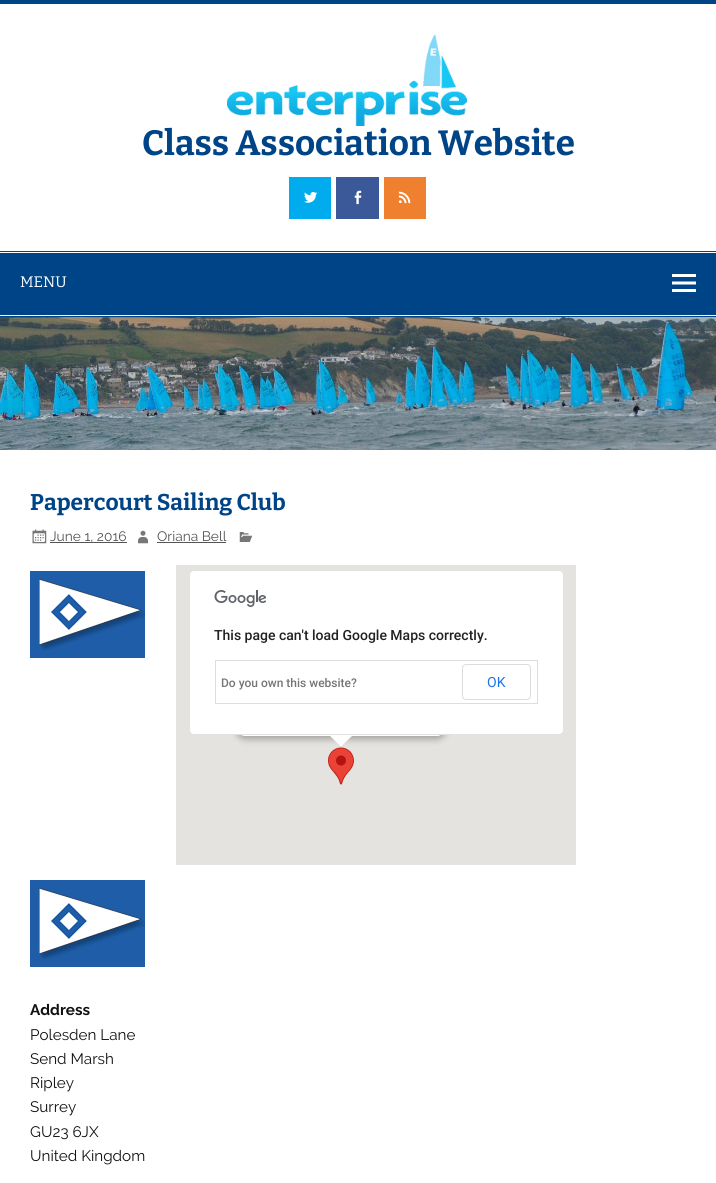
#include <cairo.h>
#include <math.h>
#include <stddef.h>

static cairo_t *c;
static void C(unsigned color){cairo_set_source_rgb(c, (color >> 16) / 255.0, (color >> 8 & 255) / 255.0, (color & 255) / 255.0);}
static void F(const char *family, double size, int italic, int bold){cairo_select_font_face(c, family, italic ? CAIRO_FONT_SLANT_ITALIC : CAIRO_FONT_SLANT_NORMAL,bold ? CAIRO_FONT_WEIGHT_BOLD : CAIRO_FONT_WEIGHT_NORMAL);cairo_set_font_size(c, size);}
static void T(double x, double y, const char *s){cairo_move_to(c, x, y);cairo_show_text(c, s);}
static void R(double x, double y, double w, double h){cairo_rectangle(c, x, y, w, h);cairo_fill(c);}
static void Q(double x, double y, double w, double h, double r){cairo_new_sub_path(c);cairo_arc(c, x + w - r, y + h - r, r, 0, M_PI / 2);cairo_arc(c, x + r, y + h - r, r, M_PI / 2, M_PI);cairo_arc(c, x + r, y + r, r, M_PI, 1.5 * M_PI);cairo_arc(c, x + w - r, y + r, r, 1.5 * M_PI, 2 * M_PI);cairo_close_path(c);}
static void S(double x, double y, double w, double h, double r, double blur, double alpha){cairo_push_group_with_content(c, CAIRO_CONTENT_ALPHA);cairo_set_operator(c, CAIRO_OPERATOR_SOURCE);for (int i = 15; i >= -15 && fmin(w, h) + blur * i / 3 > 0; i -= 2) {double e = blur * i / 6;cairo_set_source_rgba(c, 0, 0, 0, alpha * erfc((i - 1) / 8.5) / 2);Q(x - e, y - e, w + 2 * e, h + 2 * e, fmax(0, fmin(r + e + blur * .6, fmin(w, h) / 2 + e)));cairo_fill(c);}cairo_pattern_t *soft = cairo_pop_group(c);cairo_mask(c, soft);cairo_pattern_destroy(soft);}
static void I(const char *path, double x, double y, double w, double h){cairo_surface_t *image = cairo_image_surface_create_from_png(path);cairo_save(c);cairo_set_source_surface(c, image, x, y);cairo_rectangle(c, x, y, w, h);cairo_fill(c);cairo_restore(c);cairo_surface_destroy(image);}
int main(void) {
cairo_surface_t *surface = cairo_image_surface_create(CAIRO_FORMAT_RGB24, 716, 1183);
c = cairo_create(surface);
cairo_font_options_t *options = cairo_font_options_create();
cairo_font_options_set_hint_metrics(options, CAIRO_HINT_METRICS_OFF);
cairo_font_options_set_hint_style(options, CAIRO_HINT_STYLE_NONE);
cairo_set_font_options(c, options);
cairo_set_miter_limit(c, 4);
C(0xffffff);
cairo_paint(c);
C(0x004488);
R(0,0,716,4);
I("1.png",227,34,240,92);
F("Bitter",35,0,1);
T(142,155,"Class Association Website");
C(0x00aced);
R(289,177,42,42);
I("2.png",304,192,14,11);
C(0x3b5998);
R(336,177,43,42);
I("3.png",354,190,8,15);
C(0xee802f);
R(384,177,42,42);
I("4.png",398,191,13,13);
C(0x004488);
R(0,251,716,1);
R(0,316,716,1);
R(0,253,716,62);
F("Bitter",15.25,0,0);
C(0xffffff);
T(20,287,"MENU");
I("5.png",672,274,24,18);
I("6.png",0,317,716,133);
F("Bitter",22.75,0,1);
C(0x004488);
T(30,510,"Papercourt Sailing Club");
I("7.png",32,529,15,15);
C(0x555555);
R(50,542,77,1);
F("Raleway",13.75,0,0);
T(50,541,"June 1, 2016");
I("8.png",138,530,10,14);
T(157,541,"Oriana Bell");
R(157,542,69,1);
I("9.png",239,532,14,10);
I("10.png",30,571,115,87);
C(0xe5e3df);
R(176,565,400,300);
I("11.png",328,747,26,38);
C(0x000000);
S(236,625,210,114,9,3.5,.3);
C(0xffffff);
Q(237,624,208,112,8);
cairo_fill(c);
cairo_new_path(c);
cairo_move_to(c,329,735);
cairo_line_to(c,341,746.5);
cairo_line_to(c,353,735);
cairo_close_path(c);
cairo_fill(c);
Q(189,570,375,165,5);
cairo_fill(c);
Q(189.5,570.5,374,164,4.5);
cairo_set_source_rgba(c,0,0,0,0.12);
cairo_set_line_width(c,1);
cairo_stroke(c);
I("12.png",214,590,52,17);
F("Roboto Medium",14,0,0);
C(0x212121);
T(214,640,"This page can't load Google Maps correctly.");
C(0xdddddd);
R(215,660,323,1);
R(537,660,1,44);
R(215,703,323,1);
R(215,660,1,44);
F("Roboto Medium",12,0,0);
C(0x757575);
T(221,687,"Do you own this website?");
Q(462.5,664.5,68,35,3.5);
C(0xdadce0);
cairo_stroke(c);
F("Roboto",14,0,0);
C(0x1a73e8);
T(487,687,"OK");
I("10.png",30,880,115,87);
F("Raleway",15.25,0,1);
C(0x111111);
T(30,1015,"Address");
F("Raleway",15.25,0,0);
T(30,1040,"Polesden Lane");
T(30,1064,"Send Marsh");
T(30,1088,"Ripley");
T(30,1112,"Surrey");
T(30,1137,"GU23 6JX");
T(30,1161,"United Kingdom");
cairo_surface_write_to_png(surface, "o.png");
cairo_font_options_destroy(options);
cairo_destroy(c);
cairo_surface_destroy(surface);
return 0;
}
